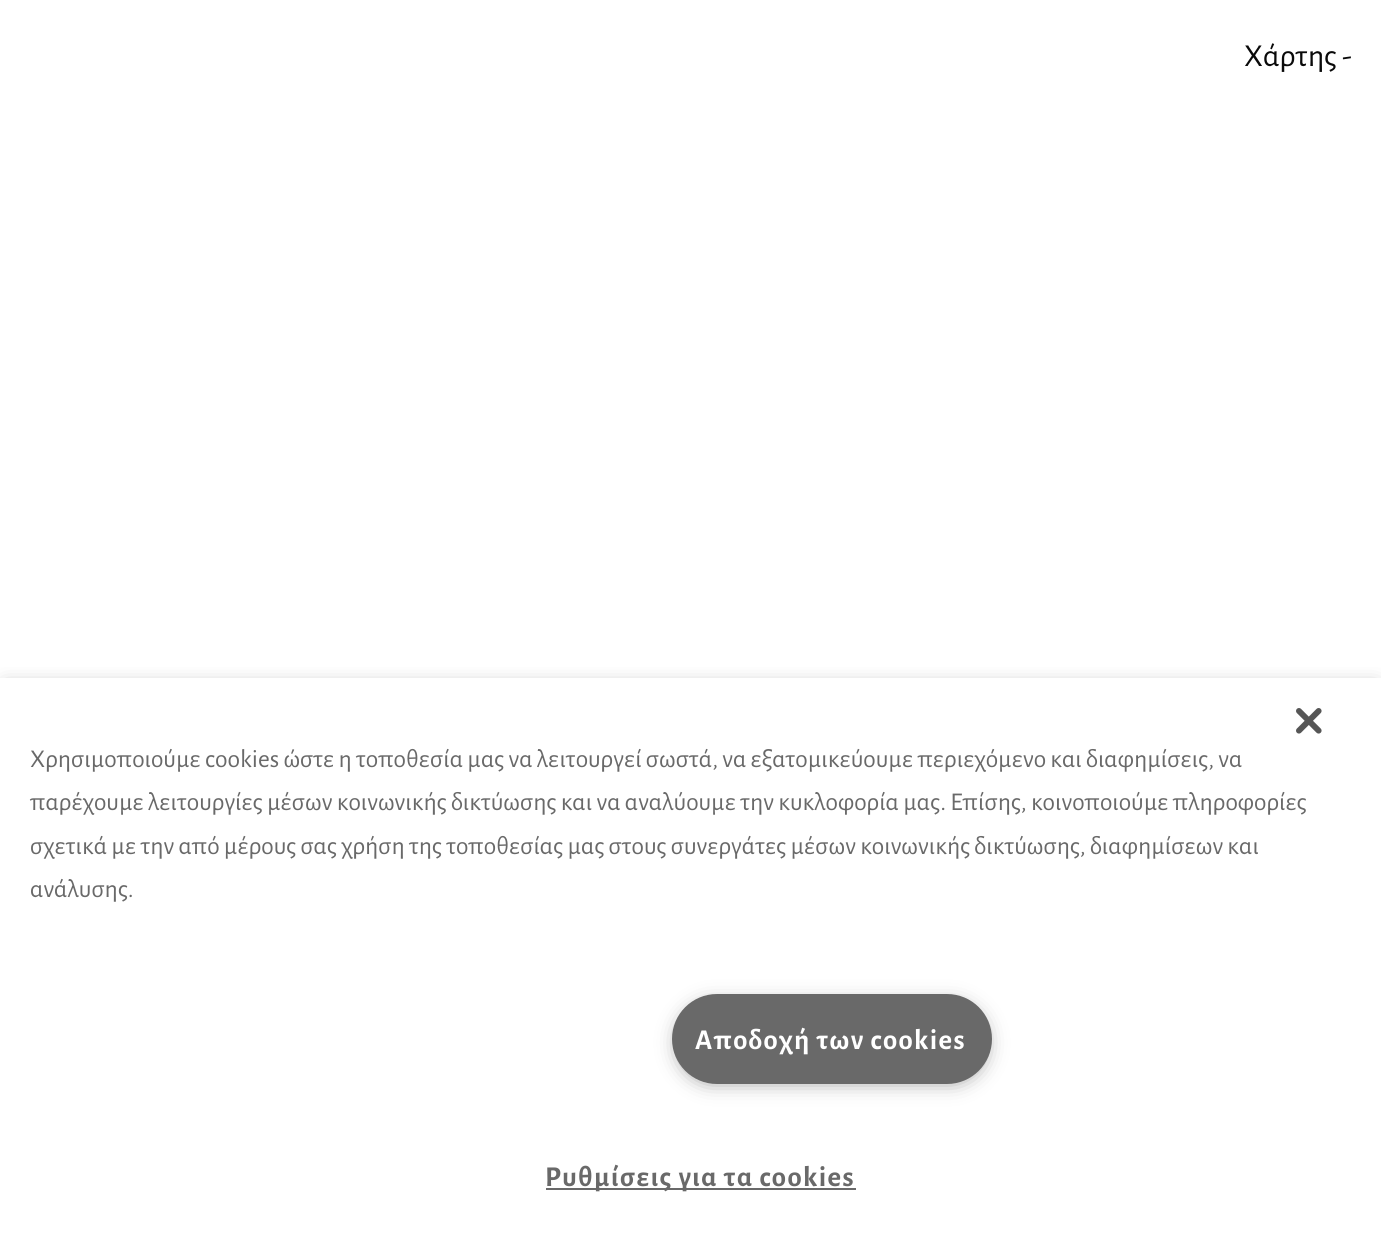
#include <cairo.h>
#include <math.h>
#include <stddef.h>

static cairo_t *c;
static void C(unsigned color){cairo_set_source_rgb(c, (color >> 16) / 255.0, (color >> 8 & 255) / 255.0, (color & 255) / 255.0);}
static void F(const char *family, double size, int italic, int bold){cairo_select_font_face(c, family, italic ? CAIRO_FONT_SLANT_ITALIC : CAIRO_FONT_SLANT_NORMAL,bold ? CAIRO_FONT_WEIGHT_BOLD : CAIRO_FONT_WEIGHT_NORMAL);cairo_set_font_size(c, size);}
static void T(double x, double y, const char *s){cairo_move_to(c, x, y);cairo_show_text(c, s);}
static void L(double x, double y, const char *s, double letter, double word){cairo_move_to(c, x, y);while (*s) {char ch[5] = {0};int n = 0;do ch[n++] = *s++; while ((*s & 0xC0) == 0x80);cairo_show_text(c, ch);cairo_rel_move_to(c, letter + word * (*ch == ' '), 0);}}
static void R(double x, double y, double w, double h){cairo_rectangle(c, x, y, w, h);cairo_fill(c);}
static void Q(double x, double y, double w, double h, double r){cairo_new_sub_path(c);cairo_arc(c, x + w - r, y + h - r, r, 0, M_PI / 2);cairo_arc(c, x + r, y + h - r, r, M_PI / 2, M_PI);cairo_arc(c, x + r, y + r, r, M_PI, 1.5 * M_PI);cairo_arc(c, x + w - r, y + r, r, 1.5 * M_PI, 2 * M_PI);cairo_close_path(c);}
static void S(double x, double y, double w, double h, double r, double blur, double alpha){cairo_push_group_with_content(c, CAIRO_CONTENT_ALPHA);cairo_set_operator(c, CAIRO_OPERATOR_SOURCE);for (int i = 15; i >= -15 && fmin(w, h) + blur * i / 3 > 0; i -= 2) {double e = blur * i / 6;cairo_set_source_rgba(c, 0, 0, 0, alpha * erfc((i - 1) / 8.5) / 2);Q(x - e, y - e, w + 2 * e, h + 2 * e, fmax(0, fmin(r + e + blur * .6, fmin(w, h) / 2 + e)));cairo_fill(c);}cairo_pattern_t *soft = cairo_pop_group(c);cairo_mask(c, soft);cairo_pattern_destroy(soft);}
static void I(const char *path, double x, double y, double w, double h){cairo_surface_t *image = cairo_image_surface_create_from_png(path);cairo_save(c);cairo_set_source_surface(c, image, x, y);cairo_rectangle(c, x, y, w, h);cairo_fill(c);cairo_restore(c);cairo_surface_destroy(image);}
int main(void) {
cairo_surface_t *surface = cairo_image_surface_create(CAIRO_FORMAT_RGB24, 1381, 1251);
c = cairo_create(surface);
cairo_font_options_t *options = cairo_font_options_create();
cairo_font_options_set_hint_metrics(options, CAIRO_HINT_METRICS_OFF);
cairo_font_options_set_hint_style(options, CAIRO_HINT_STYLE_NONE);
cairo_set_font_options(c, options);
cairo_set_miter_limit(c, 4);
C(0xffffff);
cairo_paint(c);
F("Alegreya Sans",32,0,0);
C(0x0a0a0a);
T(1244,66,"Χάρτης -");
cairo_save(c);
cairo_rectangle(c,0,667,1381,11);
cairo_clip(c);
C(0x999999);
S(6,688,1370,562,0,10,1);
cairo_restore(c);
I("1.png",1296,708,26,26);
F("Alegreya Sans",25.6,0,0);
C(0x696969);
T(30,767,"Χρησιμοποιούμε cookies ώστε η τοποθεσία μας να λειτουργεί σωστά, να εξατομικεύουμε περιεχόμενο και διαφημίσεις, να");
T(30,810,"παρέχουμε λειτουργίες μέσων κοινωνικής δικτύωσης και να αναλύουμε την κυκλοφορία μας. Επίσης, κοινοποιούμε πληροφορίες");
T(30,854,"σχετικά με την από μέρους σας χρήση της τοποθεσίας μας στους συνεργάτες μέσων κοινωνικής δικτύωσης, διαφημίσεων και");
T(30,897,"ανάλυσης.");
C(0x999999);
S(678,1004,308,78,39,10,1);
C(0x696969);
Q(673,995,318,88,44);
cairo_fill_preserve(c);
cairo_stroke(c);
F("Alegreya Sans",28.75,0,1);
C(0xffffff);
L(695,1049,"Αποδοχή των cookies",1.4,0);
C(0x696969);
R(546,1188,310,2);
L(545,1186,"Ρυθμίσεις για τα cookies",1.4,0);
cairo_surface_write_to_png(surface, "o.png");
cairo_font_options_destroy(options);
cairo_destroy(c);
cairo_surface_destroy(surface);
return 0;
}
